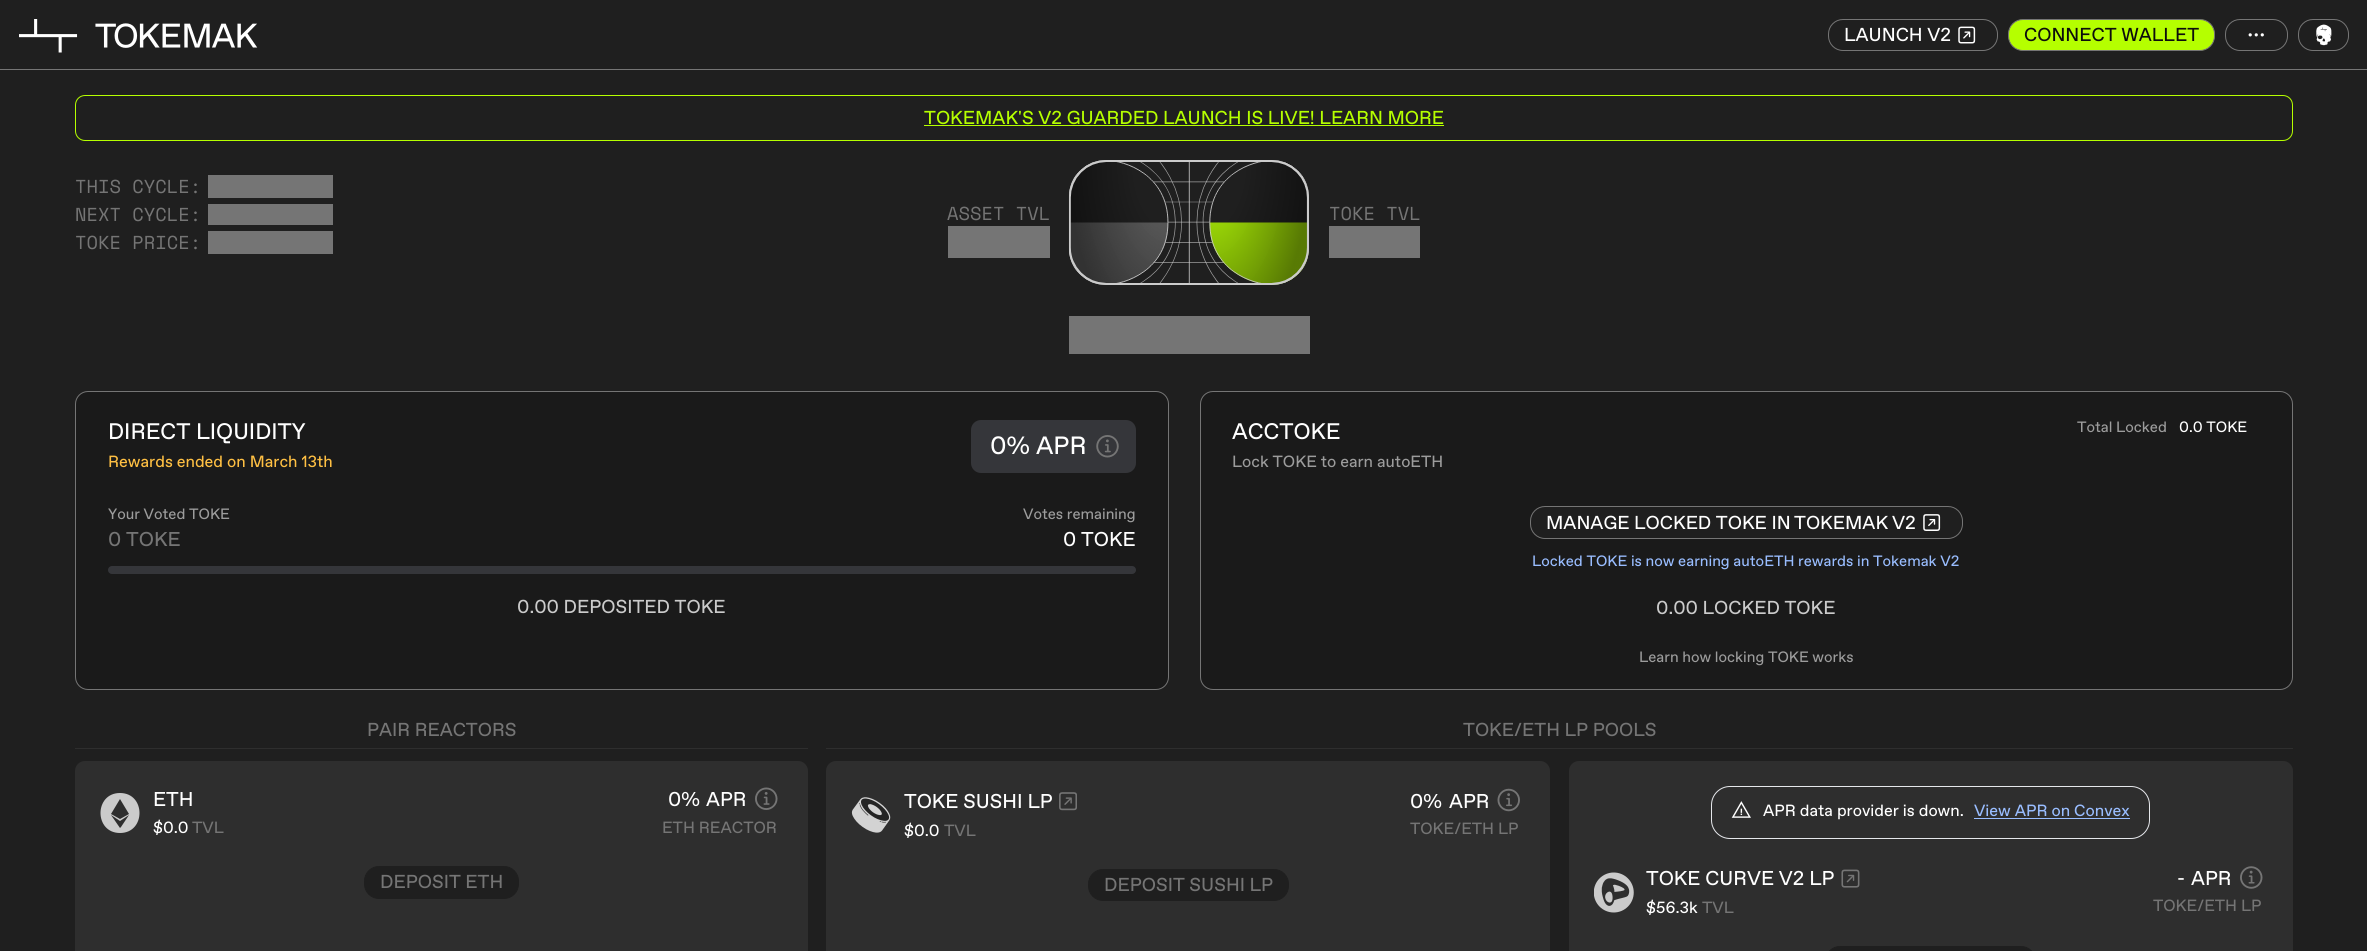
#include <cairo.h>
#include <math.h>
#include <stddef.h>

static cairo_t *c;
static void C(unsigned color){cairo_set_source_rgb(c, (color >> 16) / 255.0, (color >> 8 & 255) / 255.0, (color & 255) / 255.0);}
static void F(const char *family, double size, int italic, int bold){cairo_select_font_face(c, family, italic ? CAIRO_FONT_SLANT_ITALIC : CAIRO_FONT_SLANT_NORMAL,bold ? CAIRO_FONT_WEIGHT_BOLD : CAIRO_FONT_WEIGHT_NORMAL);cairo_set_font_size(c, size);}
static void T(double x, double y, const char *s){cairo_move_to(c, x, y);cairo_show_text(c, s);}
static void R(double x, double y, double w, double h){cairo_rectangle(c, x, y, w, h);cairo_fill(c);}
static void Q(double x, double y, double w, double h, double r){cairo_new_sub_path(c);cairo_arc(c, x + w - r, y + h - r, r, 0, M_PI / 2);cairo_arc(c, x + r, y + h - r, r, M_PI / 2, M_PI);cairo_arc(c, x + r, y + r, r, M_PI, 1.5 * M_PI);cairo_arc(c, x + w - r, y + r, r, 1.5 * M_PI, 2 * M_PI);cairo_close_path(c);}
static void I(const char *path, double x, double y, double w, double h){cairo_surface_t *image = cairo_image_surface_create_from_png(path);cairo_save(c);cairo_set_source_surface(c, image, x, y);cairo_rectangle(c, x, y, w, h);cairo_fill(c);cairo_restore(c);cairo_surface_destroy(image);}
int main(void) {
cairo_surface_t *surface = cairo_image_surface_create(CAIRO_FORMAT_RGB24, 2367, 951);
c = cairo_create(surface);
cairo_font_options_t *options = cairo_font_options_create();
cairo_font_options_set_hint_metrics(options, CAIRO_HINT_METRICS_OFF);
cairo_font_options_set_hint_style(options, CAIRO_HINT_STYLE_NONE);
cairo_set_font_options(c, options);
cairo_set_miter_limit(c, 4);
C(0x1f1f1f);
cairo_paint(c);
C(0x757575);
R(0,69,2367,1);
I("1.png",19,19,239,34);
Q(1828.5,19.5,169,31,14.5);
cairo_set_line_width(c,1);
cairo_stroke(c);
F("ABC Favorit",18.75,0,0);
C(0xffffff);
T(1844,41,"LAUNCH V2");
I("2.png",1958,26,18,18);
C(0xb5ff00);
Q(2008.5,19.5,206,31,14.5);
cairo_fill_preserve(c);
C(0x757575);
cairo_stroke(c);
C(0x0d0d0c);
T(2024,41,"CONNECT WALLET");
Q(2225.5,19.5,62,31,14.5);
C(0x757575);
cairo_stroke(c);
I("3.png",2248,33,16,4);
Q(2298.5,19.5,50,31,14.5);
cairo_stroke(c);
I("4.png",2316,24,16,22);
Q(75.5,95.5,2217,45,9.5);
C(0xb5ff00);
cairo_stroke(c);
T(924,124,"TOKEMAK'S V2 GUARDED LAUNCH IS LIVE! LEARN MORE");
R(924,125,520,1);
F("Space Mono",18.75,0,0);
C(0x757575);
T(75,193,"THIS CYCLE:");
R(208,175,125,23);
T(75,221,"NEXT CYCLE:");
R(208,204,125,21);
T(75,249,"TOKE PRICE:");
R(208,231,125,23);
T(947,220,"ASSET TVL");
R(948,226,102,32);
I("5.png",1068,160,241,125);
R(1069,316,241,38);
T(1329,220,"TOKE TVL");
R(1329,226,91,32);
C(0x1a1a1a);
Q(75.5,391.5,1093,298,12.5);
cairo_fill_preserve(c);
C(0x757575);
cairo_stroke(c);
F("ABC Favorit",22.5,0,0);
C(0xffffff);
T(108,439,"DIRECT LIQUIDITY");
F("ABC Favorit",16.25,0,0);
C(0xffc043);
T(108,467,"Rewards ended on March 13th");
C(0x35363a);
Q(971,420,165,53,10);
cairo_fill(c);
F("ABC Favorit",25,0,0);
C(0xffffff);
T(990,454,"0% APR");
I("6.png",1096,435,23,23);
F("ABC Favorit",15,0,0);
C(0x9c9c9c);
T(108,519,"Your Voted TOKE");
F("ABC Favorit",20,0,0);
C(0x757575);
T(108,546,"0 TOKE");
F("ABC Favorit",15,0,0);
C(0x9c9c9c);
T(1023,519,"Votes remaining");
F("ABC Favorit",20,0,0);
C(0xffffff);
T(1063,546,"0 TOKE");
C(0x35363a);
Q(108,566,1028,8,4);
cairo_fill(c);
F("ABC Favorit",18.75,0,0);
C(0xcbcbcb);
T(517,613,"0.00 DEPOSITED TOKE");
C(0x1a1a1a);
Q(1200.5,391.5,1092,298,12.5);
cairo_fill_preserve(c);
C(0x757575);
cairo_stroke(c);
F("ABC Favorit",22.5,0,0);
C(0xffffff);
T(1232,439,"ACCTOKE");
F("ABC Favorit",16.25,0,0);
C(0x9c9c9c);
T(1232,467,"Lock TOKE to earn autoETH");
F("ABC Favorit",15,0,0);
T(2077,432,"Total Locked");
C(0xffffff);
T(2179,432,"0.0 TOKE");
C(0x1f1f1f);
Q(1530.5,506.5,432,32,14.5);
cairo_fill_preserve(c);
C(0x757575);
cairo_stroke(c);
F("ABC Favorit",18.75,0,0);
C(0xffffff);
T(1546,529,"MANAGE LOCKED TOKE IN");
T(1794,529,"TOKEMAK");
T(1892,529,"V2");
I("7.png",1923,514,18,17);
F("ABC Favorit",15,0,0);
C(0x99bdff);
T(1532,566,"Locked TOKE is now earning autoETH rewards in Tokemak V2");
F("ABC Favorit",18.75,0,0);
C(0xcbcbcb);
T(1656,614,"0.00 LOCKED TOKE");
F("ABC Favorit",15,0,0);
C(0x9c9c9c);
T(1639,662,"Learn how locking TOKE works");
C(0x2e2e2e);
R(75,748,733,1);
F("ABC Favorit",18.75,0,0);
C(0x757575);
T(367,736,"PAIR REACTORS");
C(0x2e2e2e);
Q(75,761,733,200,10);
cairo_fill(c);
C(0xcbcbcb);
cairo_set_fill_rule(c,CAIRO_FILL_RULE_EVEN_ODD);
cairo_new_path(c);
cairo_move_to(c,120,793);
cairo_curve_to(c,94,793,94,833,120,833);
cairo_curve_to(c,146,833,146,793,120,793);
cairo_close_path(c);
cairo_move_to(c,111,814);
cairo_line_to(c,120,799);
cairo_line_to(c,129,814);
cairo_line_to(c,120,819);
cairo_close_path(c);
cairo_move_to(c,121,827);
cairo_line_to(c,129,815);
cairo_line_to(c,120,821);
cairo_line_to(c,111,815);
cairo_line_to(c,120,828);
cairo_close_path(c);
cairo_fill(c);
F("ABC Favorit",20,0,0);
C(0xffffff);
T(153,806,"ETH");
F("ABC Favorit",16.25,0,0);
T(153,833,"$0.0");
C(0x757575);
T(192,833,"TVL");
F("ABC Favorit",20,0,0);
C(0xffffff);
T(668,806,"0%");
T(706,806,"APR");
I("8.png",755,787,23,23);
F("ABC Favorit",16.25,0,0);
C(0x757575);
T(662,833,"ETH REACTOR");
C(0x1f1f1f);
Q(364.5,866.5,154,32,14.5);
cairo_fill_preserve(c);
cairo_stroke(c);
F("ABC Favorit",18.75,0,0);
C(0x757575);
T(380,888,"DEPOSIT ETH");
C(0x2e2e2e);
R(826,748,1467,1);
C(0x757575);
T(1463,736,"TOKE/ETH LP POOLS");
C(0x2e2e2e);
Q(826,761,724,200,10);
cairo_fill(c);
I("9.png",851,797,40,36);
F("ABC Favorit",20,0,0);
C(0xffffff);
T(904,808,"TOKE SUSHI LP");
I("10.png",1059,792,18,19);
F("ABC Favorit",16.25,0,0);
T(904,836,"$0.0");
C(0x757575);
T(944,836,"TVL");
F("ABC Favorit",20,0,0);
C(0xffffff);
T(1410,808,"0%");
T(1449,808,"APR");
I("11.png",1497,788,23,24);
F("ABC Favorit",16.25,0,0);
C(0x757575);
T(1410,834,"TOKE/ETH LP");
C(0x1f1f1f);
Q(1088.5,869.5,200,31,14.5);
cairo_fill_preserve(c);
cairo_stroke(c);
F("ABC Favorit",18.75,0,0);
C(0x757575);
T(1104,891,"DEPOSIT SUSHI LP");
C(0x2e2e2e);
Q(1569,761,724,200,10);
cairo_fill(c);
Q(1711.5,786.5,438,52,18.5);
C(0xe5e7eb);
cairo_stroke(c);
I("12.png",1731,801,20,17);
F("ABC Favorit",16.25,0,0);
C(0xffffff);
T(1763,816,"APR data provider is down.");
C(0x99bdff);
T(1974,816,"View APR on Convex");
R(1974,818,156,1);
I("13.png",1594,872,40,41);
F("ABC Favorit",20,0,0);
C(0xffffff);
T(1646,885,"TOKE CURVE V2 LP");
I("14.png",1841,869,19,19);
F("ABC Favorit",16.25,0,0);
T(1646,913,"$56.3k");
C(0x757575);
T(1702,913,"TVL");
F("ABC Favorit",20,0,0);
C(0xffffff);
T(2177,885,"-");
T(2191,885,"APR");
I("15.png",2240,866,23,23);
F("ABC Favorit",16.25,0,0);
C(0x757575);
T(2153,911,"TOKE/ETH LP");
C(0x1f1f1f);
Q(1825.5,946.5,210,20,14.5);
cairo_fill_preserve(c);
cairo_stroke(c);
cairo_surface_write_to_png(surface, "o.png");
cairo_font_options_destroy(options);
cairo_destroy(c);
cairo_surface_destroy(surface);
return 0;
}
